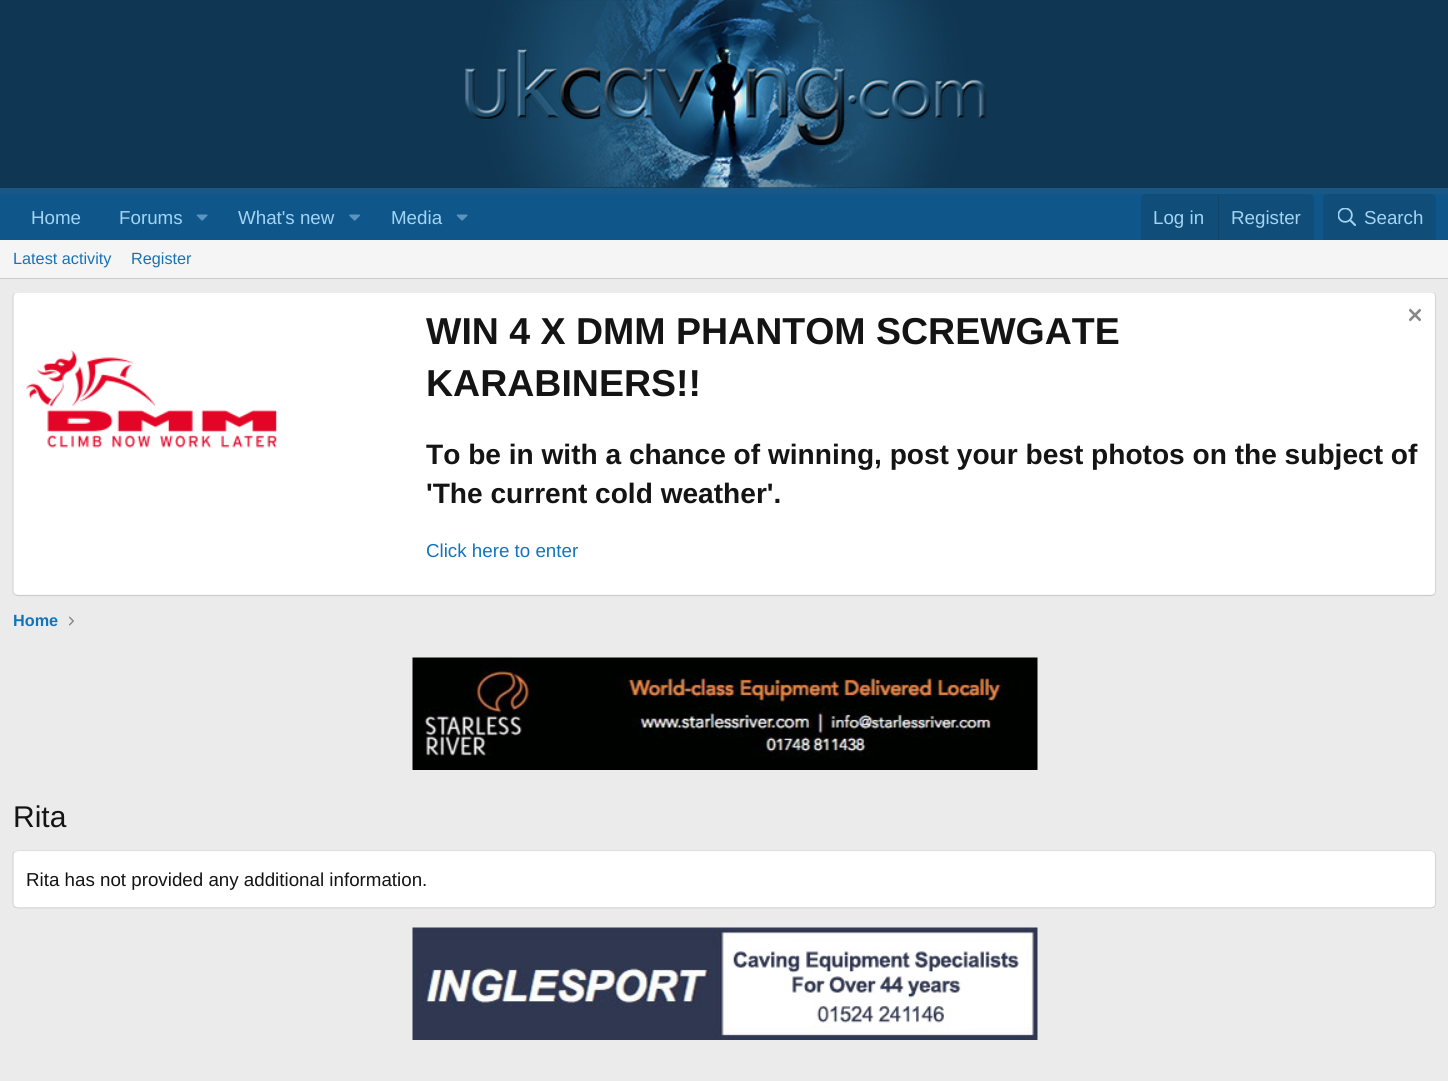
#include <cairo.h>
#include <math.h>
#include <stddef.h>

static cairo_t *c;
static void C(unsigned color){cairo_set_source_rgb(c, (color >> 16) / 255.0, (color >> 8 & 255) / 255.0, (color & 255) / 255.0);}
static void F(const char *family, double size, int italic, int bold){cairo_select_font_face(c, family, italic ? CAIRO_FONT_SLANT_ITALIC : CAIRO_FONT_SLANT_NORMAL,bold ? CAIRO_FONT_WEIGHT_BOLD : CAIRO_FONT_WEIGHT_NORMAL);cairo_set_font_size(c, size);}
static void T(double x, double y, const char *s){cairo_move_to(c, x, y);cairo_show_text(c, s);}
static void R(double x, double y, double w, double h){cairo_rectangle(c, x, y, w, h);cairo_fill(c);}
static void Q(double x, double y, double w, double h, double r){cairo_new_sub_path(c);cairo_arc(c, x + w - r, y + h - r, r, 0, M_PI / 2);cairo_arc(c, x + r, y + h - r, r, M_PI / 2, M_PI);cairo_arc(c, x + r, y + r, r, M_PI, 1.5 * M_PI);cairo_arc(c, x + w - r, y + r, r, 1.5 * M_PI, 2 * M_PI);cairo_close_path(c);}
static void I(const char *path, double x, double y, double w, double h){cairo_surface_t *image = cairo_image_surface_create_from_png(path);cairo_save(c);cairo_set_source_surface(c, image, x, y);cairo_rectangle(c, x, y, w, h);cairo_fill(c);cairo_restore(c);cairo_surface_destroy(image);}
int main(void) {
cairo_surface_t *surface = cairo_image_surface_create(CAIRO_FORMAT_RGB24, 1448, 1081);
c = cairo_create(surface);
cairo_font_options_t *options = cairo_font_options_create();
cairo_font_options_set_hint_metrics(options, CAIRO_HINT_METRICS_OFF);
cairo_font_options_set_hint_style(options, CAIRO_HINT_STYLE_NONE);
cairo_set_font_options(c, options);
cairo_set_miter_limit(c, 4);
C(0xebebeb);
cairo_paint(c);
C(0x0f3652);
R(0,0,1448,188);
C(0x185886);
R(0,188,1448,6);
I("1.png",465,0,522,188);
C(0x0f578a);
R(0,194,1448,46);
F("Liberation Sans",18.75,0,0);
C(0xa3d4f5);
T(31,224,"Home");
T(119,224,"Forums");
I("2.png",196,214,12,7);
T(238,224,"What's new");
I("3.png",349,214,11,7);
T(391,224,"Media");
I("2.png",456,214,12,7);
C(0x104d78);
cairo_new_path(c);
cairo_move_to(c,1146,194);
cairo_line_to(c,1309,194);
cairo_curve_to(c,1312,194,1314,196,1314,199);
cairo_line_to(c,1314,240);
cairo_line_to(c,1141,240);
cairo_line_to(c,1141,199);
cairo_curve_to(c,1141,196,1143,194,1146,194);
cairo_close_path(c);
cairo_fill(c);
C(0xa3d4f5);
T(1153,224,"Log in");
C(0x114469);
R(1218,194,1,46);
C(0xa3d4f5);
T(1231,224,"Register");
C(0x104d78);
cairo_new_path(c);
cairo_move_to(c,1328,194);
cairo_line_to(c,1431,194);
cairo_curve_to(c,1434,194,1436,196,1436,199);
cairo_line_to(c,1436,240);
cairo_line_to(c,1323,240);
cairo_line_to(c,1323,199);
cairo_curve_to(c,1323,196,1325,194,1328,194);
cairo_close_path(c);
cairo_fill(c);
I("4.png",1338,208,18,18);
C(0xa3d4f5);
T(1364,224,"Search");
C(0xf5f5f5);
R(0,240,1448,38);
C(0xcccccc);
R(0,278,1448,1);
F("Liberation Sans",16.25,0,0);
C(0x1474b8);
T(13,264,"Latest activity");
T(131,264,"Register");
C(0xffffff);
Q(13,291,1423,305,5);
cairo_fill(c);
cairo_new_path(c);
cairo_move_to(c,14.5,293);
cairo_line_to(c,17.5,292);
cairo_line_to(c,1431,292);
cairo_line_to(c,1434.5,293);
C(0xe0e0e0);
cairo_set_line_width(c,1.2);
cairo_stroke(c);
cairo_new_path(c);
cairo_move_to(c,1434.5,293);
cairo_curve_to(c,1435,294,1435.5,295,1435.5,296);
cairo_line_to(c,1435.5,591);
cairo_curve_to(c,1435.5,592.5,1435,593.5,1434.5,594.5);
C(0xd6d6d6);
cairo_stroke(c);
cairo_new_path(c);
cairo_move_to(c,1434.5,594.5);
cairo_line_to(c,1431,595.5);
cairo_line_to(c,17.5,595.5);
cairo_line_to(c,14.5,594.5);
C(0xcccccc);
cairo_stroke(c);
cairo_new_path(c);
cairo_move_to(c,14.5,594.5);
cairo_curve_to(c,13.5,593.5,13,592.5,13,591);
cairo_line_to(c,13,296);
cairo_curve_to(c,13,295,13.5,294,14.5,293);
C(0xd6d6d6);
cairo_stroke(c);
I("5.png",26,350,251,98);
I("6.png",1409,308,12,14);
F("Liberation Sans",37.5,0,1);
C(0x141414);
T(426,344,"WIN 4 X DMM PHANTOM SCREWGATE");
T(426,396,"KARABINERS!!");
F("Liberation Sans",28.1,0,1);
T(426,464,"To be in with a chance of winning, post your best photos on the subject of");
T(426,503,"'The current cold weather'.");
F("Liberation Sans",18.75,0,0);
C(0x1474b8);
T(426,557,"Click here to enter");
F("Liberation Sans",16.25,0,1);
T(13,626,"Home");
I("7.png",69,616,5,10);
I("8.png",412,657,626,113);
F("Liberation Sans",30,0,0);
C(0x141414);
T(13,827,"Rita");
C(0xffffff);
Q(13,850,1423,59,5);
cairo_fill(c);
cairo_new_path(c);
cairo_move_to(c,14.5,852);
cairo_line_to(c,17.5,850.5);
cairo_line_to(c,1431,850.5);
cairo_line_to(c,1434.5,852);
C(0xe0e0e0);
cairo_stroke(c);
cairo_new_path(c);
cairo_move_to(c,1434.5,852);
cairo_curve_to(c,1435,852.5,1435.5,854,1435.5,855);
cairo_line_to(c,1435.5,904);
cairo_curve_to(c,1435.5,905,1435,906,1434.5,907);
C(0xd6d6d6);
cairo_stroke(c);
cairo_new_path(c);
cairo_move_to(c,1434.5,907);
cairo_line_to(c,1431,908);
cairo_line_to(c,17.5,908);
cairo_line_to(c,14.5,907);
C(0xcccccc);
cairo_stroke(c);
cairo_new_path(c);
cairo_move_to(c,14.5,907);
cairo_curve_to(c,13.5,906,13,905,13,904);
cairo_line_to(c,13,855);
cairo_curve_to(c,13,854,13.5,852.5,14.5,852);
C(0xd6d6d6);
cairo_stroke(c);
F("Liberation Sans",18.75,0,0);
C(0x141414);
T(26,886,"Rita has not provided any additional information.");
I("9.png",412,927,626,113);
cairo_surface_write_to_png(surface, "o.png");
cairo_font_options_destroy(options);
cairo_destroy(c);
cairo_surface_destroy(surface);
return 0;
}
